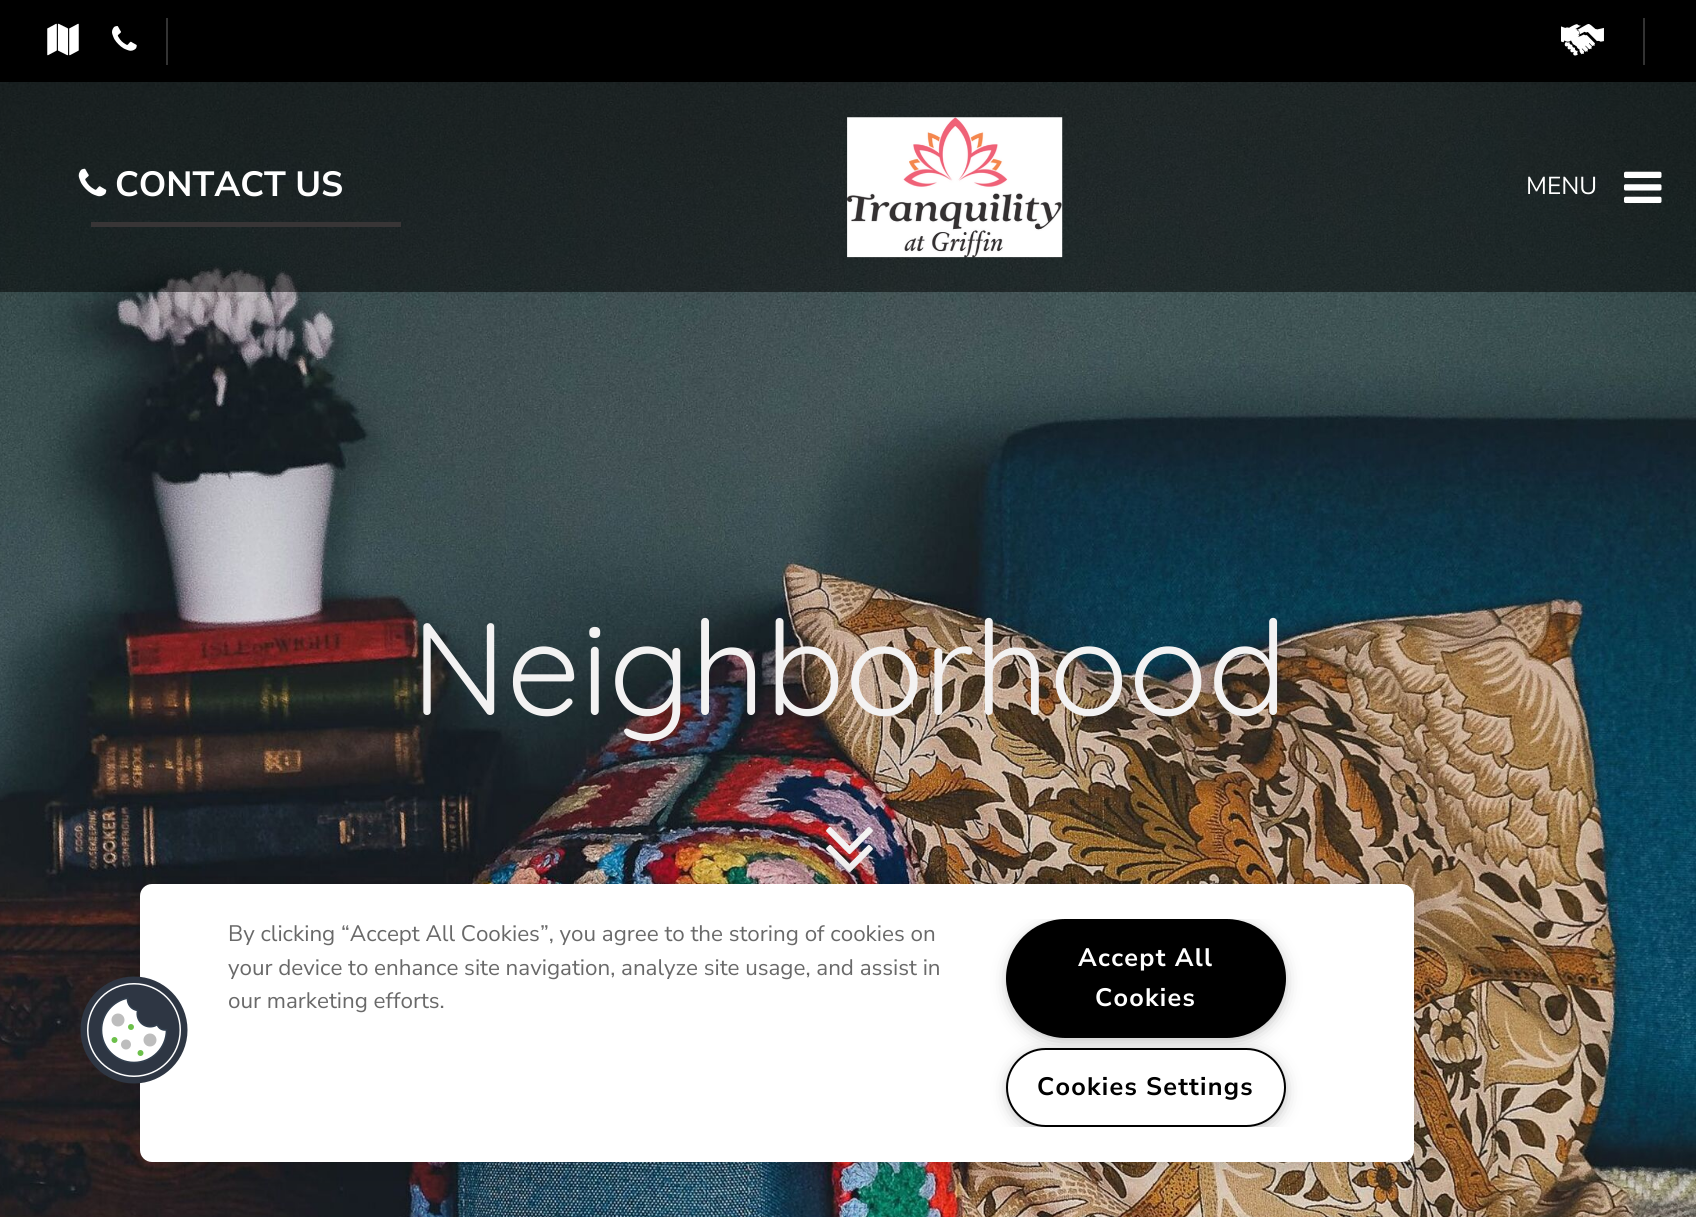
#include <cairo.h>
#include <math.h>
#include <stddef.h>

static cairo_t *c;
static void C(unsigned color){cairo_set_source_rgb(c, (color >> 16) / 255.0, (color >> 8 & 255) / 255.0, (color & 255) / 255.0);}
static void F(const char *family, double size, int italic, int bold){cairo_select_font_face(c, family, italic ? CAIRO_FONT_SLANT_ITALIC : CAIRO_FONT_SLANT_NORMAL,bold ? CAIRO_FONT_WEIGHT_BOLD : CAIRO_FONT_WEIGHT_NORMAL);cairo_set_font_size(c, size);}
static void T(double x, double y, const char *s){cairo_move_to(c, x, y);cairo_show_text(c, s);}
static void L(double x, double y, const char *s, double letter, double word){cairo_move_to(c, x, y);while (*s) {char ch[5] = {0};int n = 0;do ch[n++] = *s++; while ((*s & 0xC0) == 0x80);cairo_show_text(c, ch);cairo_rel_move_to(c, letter + word * (*ch == ' '), 0);}}
static void R(double x, double y, double w, double h){cairo_rectangle(c, x, y, w, h);cairo_fill(c);}
static void Q(double x, double y, double w, double h, double r){cairo_new_sub_path(c);cairo_arc(c, x + w - r, y + h - r, r, 0, M_PI / 2);cairo_arc(c, x + r, y + h - r, r, M_PI / 2, M_PI);cairo_arc(c, x + r, y + r, r, M_PI, 1.5 * M_PI);cairo_arc(c, x + w - r, y + r, r, 1.5 * M_PI, 2 * M_PI);cairo_close_path(c);}
static void S(double x, double y, double w, double h, double r, double blur, double alpha){cairo_push_group_with_content(c, CAIRO_CONTENT_ALPHA);cairo_set_operator(c, CAIRO_OPERATOR_SOURCE);for (int i = 15; i >= -15 && fmin(w, h) + blur * i / 3 > 0; i -= 2) {double e = blur * i / 6;cairo_set_source_rgba(c, 0, 0, 0, alpha * erfc((i - 1) / 8.5) / 2);Q(x - e, y - e, w + 2 * e, h + 2 * e, fmax(0, fmin(r + e + blur * .6, fmin(w, h) / 2 + e)));cairo_fill(c);}cairo_pattern_t *soft = cairo_pop_group(c);cairo_mask(c, soft);cairo_pattern_destroy(soft);}
static void I(const char *path, double x, double y, double w, double h){cairo_surface_t *image = cairo_image_surface_create_from_png(path);cairo_save(c);cairo_set_source_surface(c, image, x, y);cairo_rectangle(c, x, y, w, h);cairo_fill(c);cairo_restore(c);cairo_surface_destroy(image);}
int main(void) {
cairo_surface_t *surface = cairo_image_surface_create(CAIRO_FORMAT_RGB24, 1696, 1217);
c = cairo_create(surface);
cairo_font_options_t *options = cairo_font_options_create();
cairo_font_options_set_hint_metrics(options, CAIRO_HINT_METRICS_OFF);
cairo_font_options_set_hint_style(options, CAIRO_HINT_STYLE_NONE);
cairo_set_font_options(c, options);
cairo_set_miter_limit(c, 4);
C(0xffffff);
cairo_paint(c);
I("7.png",0,82,1696,1135);
cairo_set_source_rgba(c,0,0,0,0.5);
R(0,82,1696,210);
C(0x000000);
R(0,0,1696,82);
C(0x333333);
R(166,18,2,47);
I("1.png",47,23,32,33);
I("2.png",112,26,25,25);
R(1643,18,2,47);
I("3.png",1561,24,43,32);
C(0x383536);
R(91,222,310,5);
I("4.png",78,168,29,29);
F("Nunito Sans",35,0,1);
C(0xffffff);
T(115,196,"CONTACT US");
I("5.png",847,117,216,141);
F("Nunito Sans",24.5,0,0);
T(1526,194,"MENU");
I("6.png",1624,171,38,32);
F("Quicksand Light",131.25,0,0);
C(0xf3f2f2);
T(411,715,"Neighborhood");
I("8.png",826,826,47,47);
C(0x000000);
S(140,884,1274,278,12,16,.2);
C(0xffffff);
Q(140,884,1274,278,12);
cairo_fill(c);
I("9.png",80,976,108,108);
F("Nunito Sans",22.4,0,0);
C(0x696969);
T(228,941,"By clicking “Accept All Cookies”, you agree to the storing of cookies on");
T(228,975,"your device to enhance site navigation, analyze site usage, and assist in");
T(228,1008,"our marketing efforts.");
cairo_save(c);
cairo_rectangle(c,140,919,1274,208);
cairo_clip(c);
C(0x999999);
S(1012,928,269,108,54,9,1);
cairo_restore(c);
C(0x000000);
Q(1007,920,278,117,58.5);
cairo_fill_preserve(c);
cairo_stroke(c);
F("Nunito Sans",25.25,0,1);
C(0xffffff);
L(1078,966,"Accept All",1.25,0);
L(1095,1006,"Cookies",1.25,0);
cairo_save(c);
cairo_rectangle(c,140,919,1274,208);
cairo_clip(c);
C(0x999999);
S(1012,1057,269,68,34,9,1);
cairo_restore(c);
Q(1007,1049,278,77,38.5);
cairo_fill_preserve(c);
C(0x000000);
cairo_stroke(c);
L(1037,1095,"Cookies Settings",1.25,0);
cairo_surface_write_to_png(surface, "o.png");
cairo_font_options_destroy(options);
cairo_destroy(c);
cairo_surface_destroy(surface);
return 0;
}
